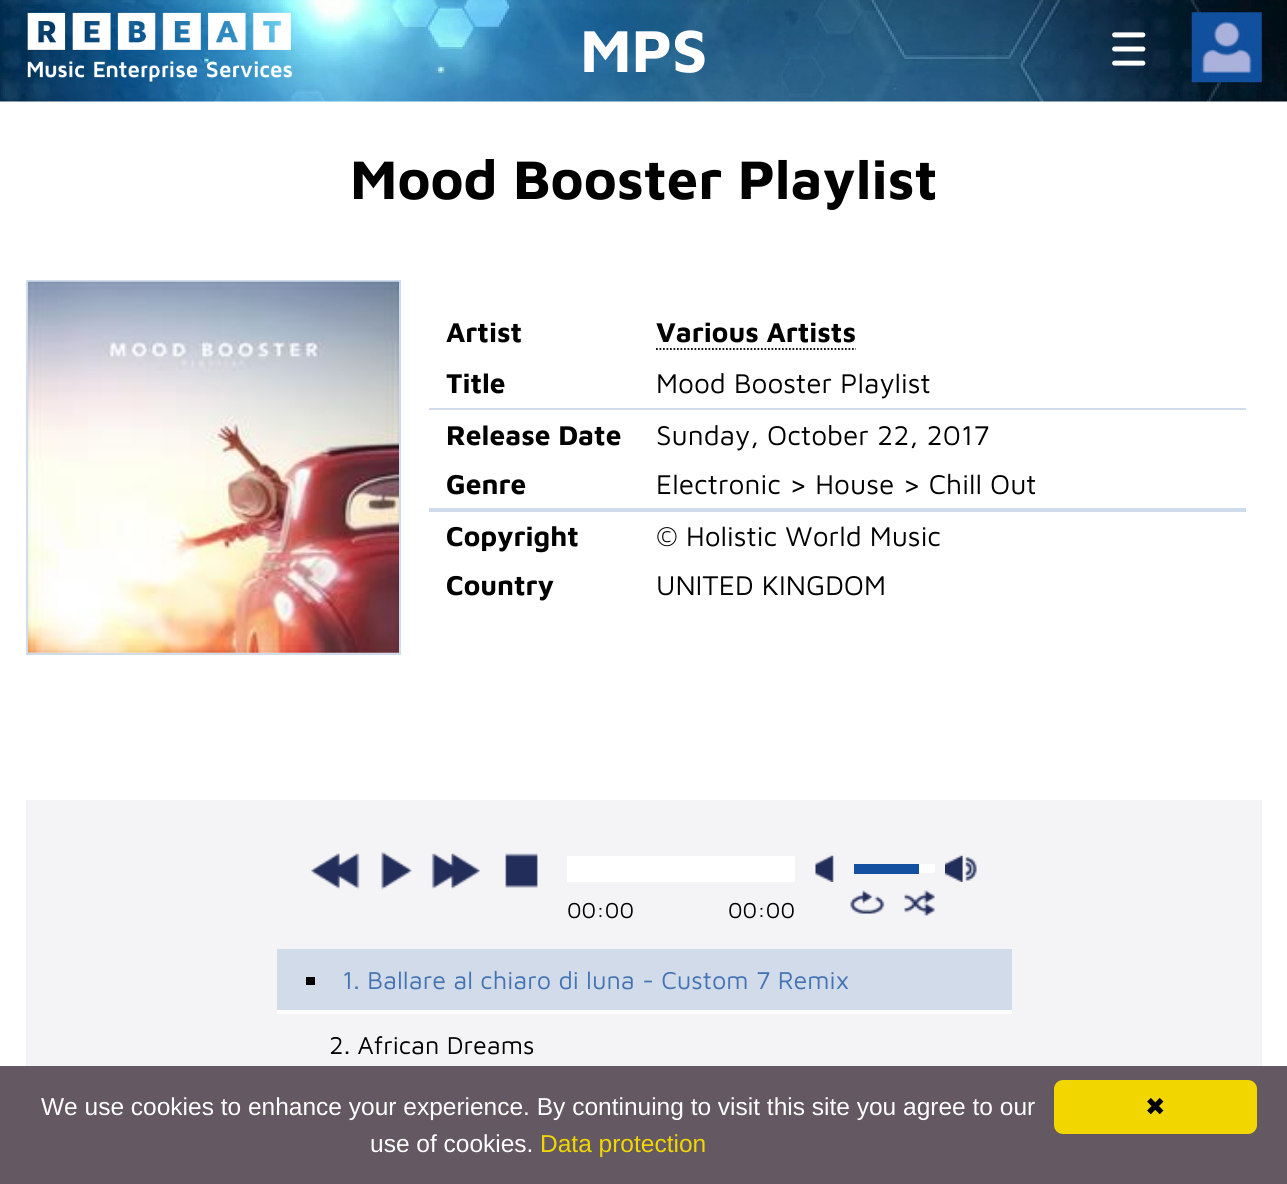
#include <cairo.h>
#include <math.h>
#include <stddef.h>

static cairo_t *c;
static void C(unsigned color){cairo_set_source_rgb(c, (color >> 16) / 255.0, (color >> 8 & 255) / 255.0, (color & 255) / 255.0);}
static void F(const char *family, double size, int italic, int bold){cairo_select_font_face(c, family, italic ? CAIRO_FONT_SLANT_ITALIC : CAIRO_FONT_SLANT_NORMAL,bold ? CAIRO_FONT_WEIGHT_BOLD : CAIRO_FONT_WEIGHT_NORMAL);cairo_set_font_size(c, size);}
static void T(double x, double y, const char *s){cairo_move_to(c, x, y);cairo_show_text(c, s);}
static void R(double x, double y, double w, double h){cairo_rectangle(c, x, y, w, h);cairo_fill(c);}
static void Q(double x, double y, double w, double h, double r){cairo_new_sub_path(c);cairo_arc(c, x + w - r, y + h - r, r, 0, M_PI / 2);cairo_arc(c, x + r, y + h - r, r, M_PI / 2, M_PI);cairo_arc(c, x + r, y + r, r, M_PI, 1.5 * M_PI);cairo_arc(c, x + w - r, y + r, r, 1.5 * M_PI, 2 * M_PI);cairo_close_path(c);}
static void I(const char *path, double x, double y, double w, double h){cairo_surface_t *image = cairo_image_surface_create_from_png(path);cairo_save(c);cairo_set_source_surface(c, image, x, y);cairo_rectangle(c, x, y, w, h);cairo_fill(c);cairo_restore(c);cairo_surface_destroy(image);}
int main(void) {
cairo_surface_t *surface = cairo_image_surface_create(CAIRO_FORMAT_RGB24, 1287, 1184);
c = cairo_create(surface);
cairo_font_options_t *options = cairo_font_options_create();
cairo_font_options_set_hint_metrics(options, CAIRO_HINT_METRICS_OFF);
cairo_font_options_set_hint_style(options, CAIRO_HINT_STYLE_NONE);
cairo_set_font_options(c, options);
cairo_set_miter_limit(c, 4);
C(0xffffff);
cairo_paint(c);
I("1.png",0,0,1287,102);
I("2.png",27,12,266,70);
F("Maven Pro",61,0,1);
C(0xffffff);
T(580,72,"MPS");
I("3.png",1112,32,34,34);
I("4.png",1191,12,71,71);
F("Maven Pro",56,0,1);
C(0x000000);
T(350,199,"Mood Booster Playlist");
cairo_rectangle(c,27,281,373,373);
C(0xd0dcec);
cairo_stroke(c);
I("5.png",28,281,371,372);
F("Maven Pro",28,0,1);
C(0x000000);
T(446,342,"Artist");
cairo_new_path(c);
cairo_move_to(c,656,349);
cairo_line_to(c,856,349);
cairo_set_line_width(c,1.8);
cairo_set_dash(c,(double[]){1.75,1.75},2,0);
cairo_stroke(c);
T(656,342,"Various Artists");
T(446,393,"Title");
F("Maven Pro",28,0,0);
T(656,393,"Mood Booster Playlist");
C(0xd0dcec);
R(429,408,817,2);
F("Maven Pro",28,0,1);
C(0x000000);
T(446,445,"Release Date");
F("Maven Pro",28,0,0);
T(656,445,"Sunday, October 22, 2017");
F("Maven Pro",28,0,1);
T(446,494,"Genre");
F("Maven Pro",28,0,0);
T(656,494,"Electronic > House > Chill Out");
C(0xd0dcec);
R(429,508,817,4);
F("Maven Pro",28,0,1);
C(0x000000);
T(446,546,"Copyright");
F("Maven Pro",28,0,0);
T(656,546,"© Holistic World Music");
F("Maven Pro",28,0,1);
T(446,595,"Country");
F("Maven Pro",28,0,0);
T(656,595,"UNITED KINGDOM");
C(0xf4f4f7);
R(26,800,1236,266);
I("6.png",311,853,49,37);
I("7.png",381,851,31,39);
I("8.png",431,853,49,37);
I("9.png",505,853,33,35);
I("10.png",815,855,19,27);
I("11.png",945,855,32,27);
C(0xffffff);
R(567,856,228,26);
R(919,864,16,9);
C(0x1450a0);
R(854,864,65,10);
F("Maven Pro",22.5,0,0);
C(0x000000);
T(567,918,"00:00");
T(728,918,"00:00");
I("12.png",850,890,35,24);
I("13.png",904,890,31,26);
C(0xd2dbea);
R(277,949,735,61);
C(0xffffff);
R(277,1010,735,4);
C(0x000000);
R(306,977,9,8);
F("Maven Pro",25.2,0,0);
C(0x4373b3);
T(342,989,"1. Ballare al chiaro di luna - Custom 7 Remix");
C(0x000000);
T(329,1054,"2. African Dreams");
C(0x645862);
R(0,1066,1287,118);
F("Liberation Sans",24.5,0,0);
C(0xffffff);
T(41,1115,"We use cookies to enhance your experience. By continuing to visit this site you agree to our");
T(370,1152,"use of cookies.");
C(0xf1d600);
T(540,1152,"Data protection");
Q(1054,1080,203,54,9);
cairo_fill(c);
F("DejaVu Sans",24.5,0,0);
C(0x000000);
T(1145,1115,"✖");
cairo_surface_write_to_png(surface, "o.png");
cairo_font_options_destroy(options);
cairo_destroy(c);
cairo_surface_destroy(surface);
return 0;
}
